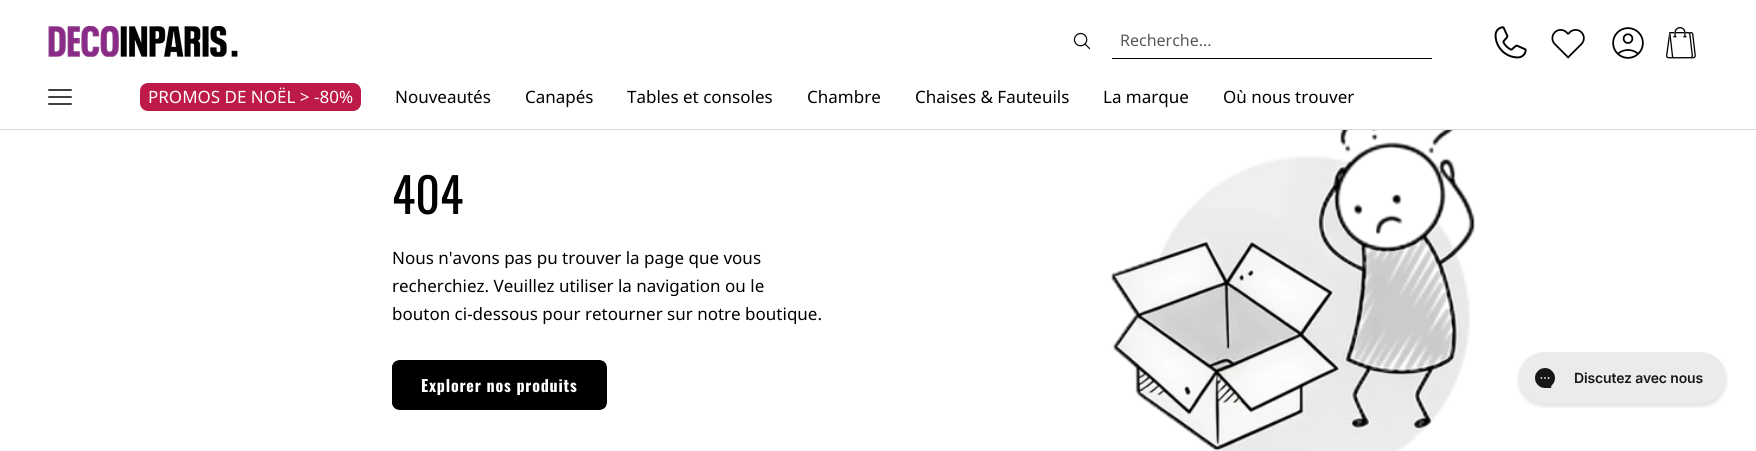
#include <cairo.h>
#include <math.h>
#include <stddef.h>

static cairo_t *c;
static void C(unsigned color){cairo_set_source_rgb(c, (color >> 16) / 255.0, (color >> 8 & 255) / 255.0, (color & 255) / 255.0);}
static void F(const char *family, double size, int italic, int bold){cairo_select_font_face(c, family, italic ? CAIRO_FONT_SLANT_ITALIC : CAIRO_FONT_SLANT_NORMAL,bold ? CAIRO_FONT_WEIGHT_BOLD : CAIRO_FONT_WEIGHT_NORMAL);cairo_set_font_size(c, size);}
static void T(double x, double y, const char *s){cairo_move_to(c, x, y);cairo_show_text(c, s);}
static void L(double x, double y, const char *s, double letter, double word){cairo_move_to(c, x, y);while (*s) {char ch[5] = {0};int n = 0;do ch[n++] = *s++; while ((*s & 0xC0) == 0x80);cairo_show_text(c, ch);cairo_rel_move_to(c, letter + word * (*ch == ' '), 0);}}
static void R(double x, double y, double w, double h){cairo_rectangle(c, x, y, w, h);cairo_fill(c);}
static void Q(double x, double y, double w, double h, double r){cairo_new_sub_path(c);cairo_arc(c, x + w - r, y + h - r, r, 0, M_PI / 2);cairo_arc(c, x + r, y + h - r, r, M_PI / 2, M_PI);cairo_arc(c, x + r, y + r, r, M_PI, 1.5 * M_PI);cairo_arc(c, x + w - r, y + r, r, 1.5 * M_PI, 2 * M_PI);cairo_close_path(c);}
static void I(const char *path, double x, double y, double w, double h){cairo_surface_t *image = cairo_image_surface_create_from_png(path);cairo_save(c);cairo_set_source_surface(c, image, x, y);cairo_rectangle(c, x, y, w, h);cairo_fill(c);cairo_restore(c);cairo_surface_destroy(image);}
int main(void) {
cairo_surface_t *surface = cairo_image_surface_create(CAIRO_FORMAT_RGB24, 1756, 451);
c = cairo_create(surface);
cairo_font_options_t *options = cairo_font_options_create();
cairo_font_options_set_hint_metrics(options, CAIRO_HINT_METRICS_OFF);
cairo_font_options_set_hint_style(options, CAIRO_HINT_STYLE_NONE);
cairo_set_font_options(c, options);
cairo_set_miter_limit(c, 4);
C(0xffffff);
cairo_paint(c);
C(0xd9d9d9);
R(0,129,1756,1);
I("1.png",48,26,190,31);
I("2.png",1073,32,18,18);
C(0x000000);
R(1112,58,320,1);
F("Noto Sans",16,0,0);
C(0x595959);
T(1120,46,"Recherche...");
I("3.png",1494,26,33,33);
I("4.png",1551,29,34,30);
I("5.png",1612,27,32,32);
I("6.png",1666,27,30,32);
cairo_new_path(c);
cairo_move_to(c,49,104);
cairo_line_to(c,71,104);
cairo_move_to(c,49,97);
cairo_line_to(c,71,97);
cairo_move_to(c,49,90);
cairo_line_to(c,71,90);
C(0x000000);
cairo_set_line_width(c,1.5);
cairo_set_line_cap(c,CAIRO_LINE_CAP_SQUARE);
cairo_stroke(c);
C(0xbe1a47);
Q(140,83,221,28,8);
cairo_fill(c);
F("Noto Sans",17,0,0);
C(0xffffff);
T(148,103,"PROMOS DE NOËL > -80%");
C(0x000000);
T(395,103,"Nouveautés");
T(525,103,"Canapés");
T(627,103,"Tables et consoles");
T(807,103,"Chambre");
T(915,103,"Chaises & Fauteuils");
T(1103,103,"La marque");
T(1223,103,"Où nous trouver");
F("Oswald",48,0,0);
T(392,214,"404");
F("Noto Sans",17,0,0);
T(392,264,"Nous n'avons pas pu trouver la page que vous");
T(392,292,"recherchiez. Veuillez utiliser la navigation ou le");
T(392,320,"bouton ci-dessous pour retourner sur notre boutique.");
cairo_save(c);
Q(392,360,215,50,8);
cairo_clip(c);
R(392,361,214,48);
cairo_restore(c);
Q(392.5,360.5,214,49,7.5);
cairo_set_line_width(c,1);
cairo_set_line_cap(c,CAIRO_LINE_CAP_BUTT);
cairo_stroke(c);
F("Oswald",16,0,1);
C(0xffffff);
L(421,392,"Explorer nos produits",.8,0);
I("7.png",1111,130,364,321);
I("8.png",1517,352,211,56);
cairo_surface_write_to_png(surface, "o.png");
cairo_font_options_destroy(options);
cairo_destroy(c);
cairo_surface_destroy(surface);
return 0;
}
